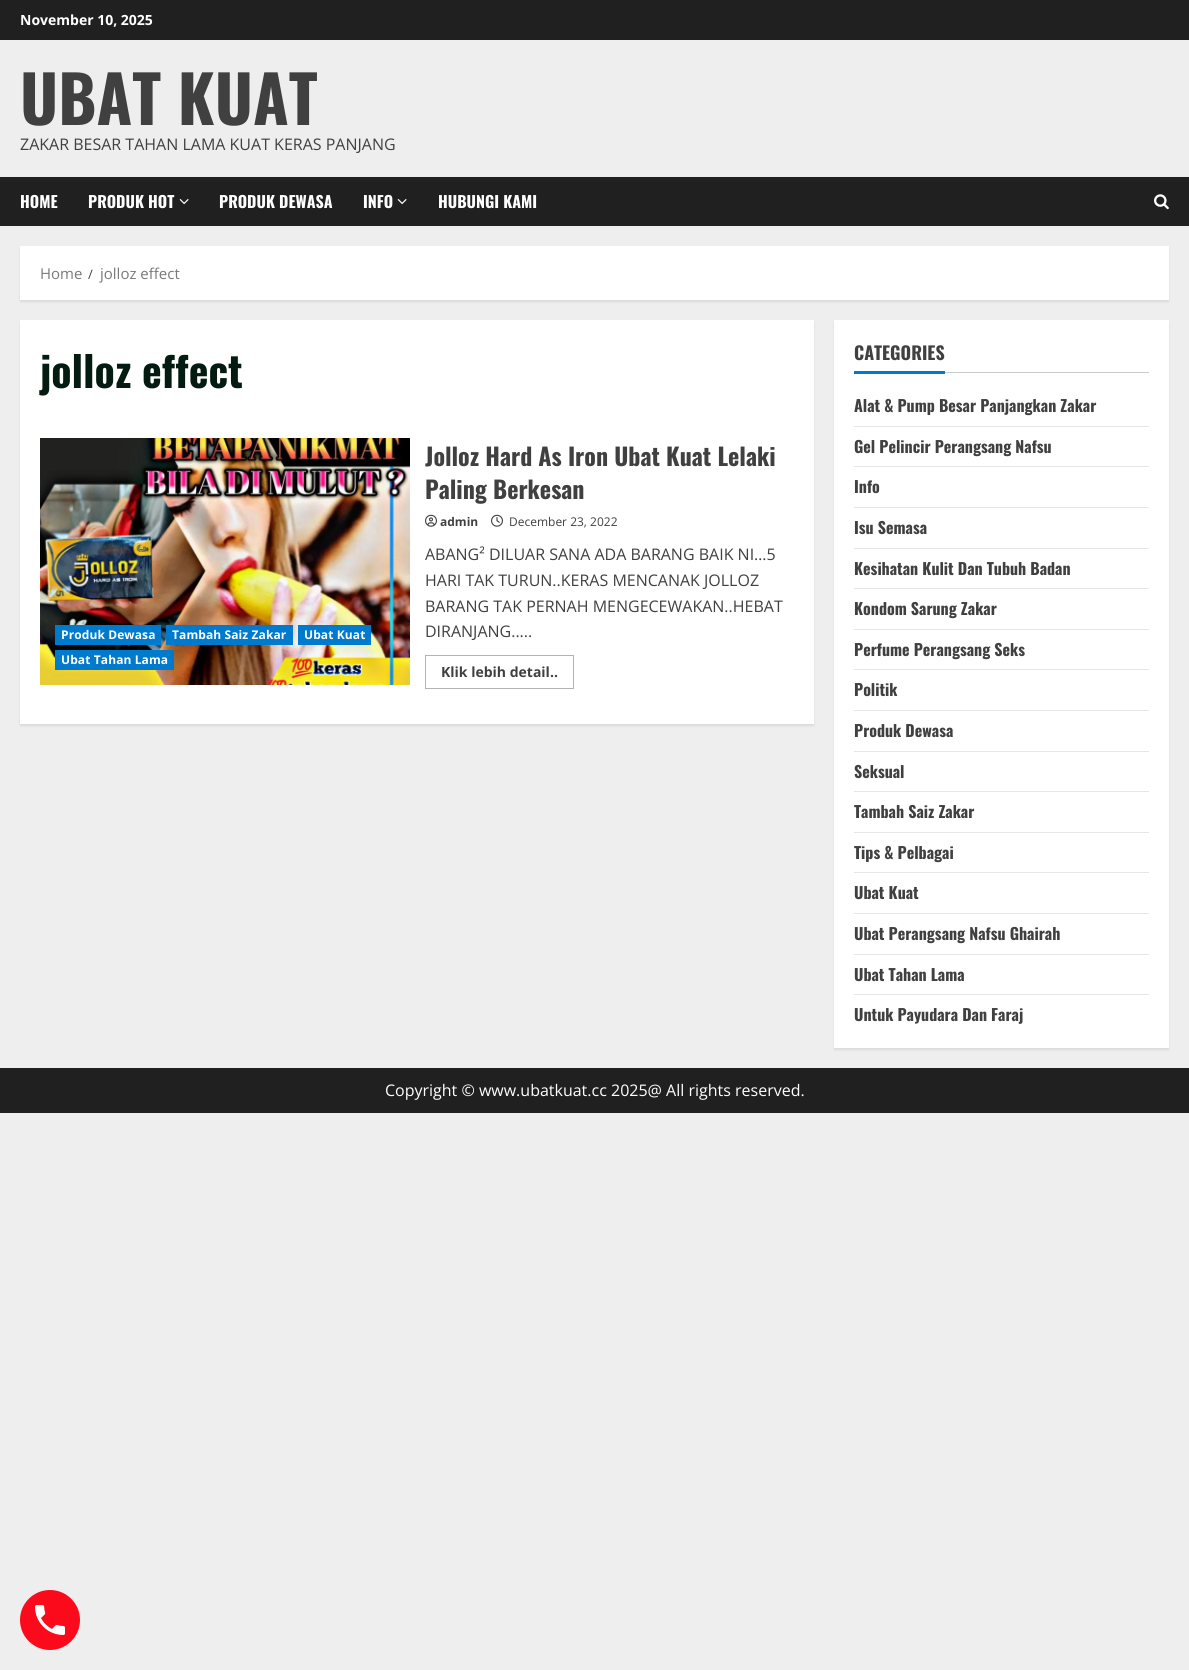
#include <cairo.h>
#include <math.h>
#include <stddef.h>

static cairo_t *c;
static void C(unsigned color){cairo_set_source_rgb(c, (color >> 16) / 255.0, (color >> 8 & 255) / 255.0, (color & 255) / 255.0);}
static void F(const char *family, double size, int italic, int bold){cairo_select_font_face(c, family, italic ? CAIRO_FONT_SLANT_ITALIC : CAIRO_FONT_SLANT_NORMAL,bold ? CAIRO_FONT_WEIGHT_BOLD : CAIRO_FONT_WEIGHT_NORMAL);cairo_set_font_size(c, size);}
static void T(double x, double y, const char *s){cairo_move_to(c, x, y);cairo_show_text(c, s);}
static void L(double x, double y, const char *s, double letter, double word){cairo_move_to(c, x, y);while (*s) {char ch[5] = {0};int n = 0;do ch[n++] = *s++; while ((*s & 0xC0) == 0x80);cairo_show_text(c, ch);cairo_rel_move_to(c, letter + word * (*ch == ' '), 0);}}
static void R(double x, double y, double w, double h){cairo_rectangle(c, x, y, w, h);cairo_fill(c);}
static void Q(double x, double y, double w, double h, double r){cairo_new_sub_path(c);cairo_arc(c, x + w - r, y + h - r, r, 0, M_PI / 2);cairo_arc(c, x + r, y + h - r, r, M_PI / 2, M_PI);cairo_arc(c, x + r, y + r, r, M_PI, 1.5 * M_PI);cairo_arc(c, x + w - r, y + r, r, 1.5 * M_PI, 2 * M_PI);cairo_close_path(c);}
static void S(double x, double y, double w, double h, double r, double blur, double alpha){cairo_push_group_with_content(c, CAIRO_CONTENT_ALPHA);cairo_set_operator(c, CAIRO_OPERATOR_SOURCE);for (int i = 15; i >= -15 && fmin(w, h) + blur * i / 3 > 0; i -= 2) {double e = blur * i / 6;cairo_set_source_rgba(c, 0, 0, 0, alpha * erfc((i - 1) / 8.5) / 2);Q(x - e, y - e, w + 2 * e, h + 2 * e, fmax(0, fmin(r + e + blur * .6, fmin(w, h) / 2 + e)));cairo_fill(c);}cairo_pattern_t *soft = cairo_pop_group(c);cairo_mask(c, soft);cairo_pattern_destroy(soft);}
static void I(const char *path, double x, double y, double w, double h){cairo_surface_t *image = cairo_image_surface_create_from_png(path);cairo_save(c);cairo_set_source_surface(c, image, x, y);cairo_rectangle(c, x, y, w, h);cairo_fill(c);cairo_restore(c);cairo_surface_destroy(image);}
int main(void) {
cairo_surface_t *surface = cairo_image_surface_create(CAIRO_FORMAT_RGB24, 1189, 1670);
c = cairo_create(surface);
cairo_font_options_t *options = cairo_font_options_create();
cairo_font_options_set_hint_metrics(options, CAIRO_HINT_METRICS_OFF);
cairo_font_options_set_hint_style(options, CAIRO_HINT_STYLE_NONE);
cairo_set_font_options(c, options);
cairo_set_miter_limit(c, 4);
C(0xeeeeee);
cairo_paint(c);
C(0x202020);
R(0,0,1189,40);
F("Open Sans",14,0,1);
C(0xffffff);
T(20,25,"November 10, 2025");
F("Oswald",65,0,1);
C(0x404040);
T(20,125,"UBAT KUAT");
F("Open Sans",16,0,0);
T(20,150,"ZAKAR BESAR TAHAN LAMA KUAT KERAS PANJANG");
C(0x202020);
R(0,177,1189,49);
F("Oswald",16,0,1);
C(0xffffff);
T(20,208,"HOME");
T(88,208,"PRODUK HOT");
I("1.png",179,199,10,6);
T(219,208,"PRODUK DEWASA");
T(363,208,"INFO");
I("1.png",397,199,10,6);
T(438,208,"HUBUNGI KAMI");
I("2.png",1154,194,15,16);
C(0x000000);
S(20,248,1149,54,0,1,.08);
C(0xffffff);
R(20,246,1149,54);
F("Open Sans",15,0,0);
C(0x797979);
T(40,279,"Home");
F("Open Sans",13,0,0);
C(0x404040);
T(88,279,"/");
F("Open Sans",15,0,0);
C(0x797979);
T(100,279,"jolloz effect");
C(0x000000);
S(20,322,794,404,0,1,.08);
C(0xffffff);
R(20,320,794,404);
F("Oswald",42,0,1);
C(0x031b11);
T(40,388,"jolloz effect");
I("3.png",40,438,370,247);
C(0x007acc);
R(55,625,106,20);
F("Open Sans",12,0,1);
C(0xffffff);
L(61,639,"Produk Dewasa",.1,0);
C(0x007acc);
R(166,625,127,20);
C(0xffffff);
L(172,639,"Tambah Saiz Zakar",.1,0);
C(0x007acc);
R(298,625,73,20);
C(0xffffff);
L(304,639,"Ubat Kuat",.1,0);
C(0x007acc);
R(55,650,119,20);
C(0xffffff);
L(61,664,"Ubat Tahan Lama",.1,0);
F("Oswald",24,0,1);
C(0x404040);
T(425,466,"Jolloz Hard As Iron Ubat Kuat Lelaki");
T(425,499,"Paling Berkesan");
I("4.png",425,514,12,13);
F("Open Sans",12,0,1);
T(440,526,"admin");
I("5.png",491,514,12,13);
F("Open Sans",12,0,0);
T(509,526,"December 23, 2022");
F("Open Sans",16,0,0);
T(425,560,"ABANG² DILUAR SANA ADA BARANG BAIK NI…5");
T(425,586,"HARI TAK TURUN..KERAS MENCANAK JOLLOZ");
T(425,612,"BARANG TAK PERNAH MENGECEWAKAN..HEBAT");
T(425,637,"DIRANJANG.....");
cairo_rectangle(c,425.5,655.5,148,33);
C(0xb3b3b3);
cairo_set_line_width(c,1);
cairo_stroke(c);
F("Open Sans",14,0,1);
C(0x404040);
T(441,677,"Klik lebih detail..");
C(0x000000);
S(834,322,335,728,0,1,.08);
C(0xffffff);
R(834,320,335,728);
C(0xcccccc);
R(945,372,204,1);
F("Oswald",18,0,1);
C(0x404040);
T(854,360,"CATEGORIES");
C(0x007acc);
R(854,371,91,3);
C(0xe6e6e6);
R(854,426,295,1);
F("Oswald",16,0,1);
C(0x404040);
T(854,412,"Alat & Pump Besar Panjangkan Zakar");
C(0xe6e6e6);
R(854,466,295,1);
C(0x404040);
T(854,453,"Gel Pelincir Perangsang Nafsu");
C(0xe6e6e6);
R(854,507,295,1);
C(0x404040);
T(854,493,"Info");
C(0xe6e6e6);
R(854,548,295,1);
C(0x404040);
T(854,534,"Isu Semasa");
C(0xe6e6e6);
R(854,588,295,1);
C(0x404040);
T(854,575,"Kesihatan Kulit Dan Tubuh Badan");
C(0xe6e6e6);
R(854,629,295,1);
C(0x404040);
T(854,615,"Kondom Sarung Zakar");
C(0xe6e6e6);
R(854,669,295,1);
C(0x404040);
T(854,656,"Perfume Perangsang Seks");
C(0xe6e6e6);
R(854,710,295,1);
C(0x404040);
T(854,696,"Politik");
C(0xe6e6e6);
R(854,751,295,1);
C(0x404040);
T(854,737,"Produk Dewasa");
C(0xe6e6e6);
R(854,791,295,1);
C(0x404040);
T(854,778,"Seksual");
C(0xe6e6e6);
R(854,832,295,1);
C(0x404040);
T(854,818,"Tambah Saiz Zakar");
C(0xe6e6e6);
R(854,872,295,1);
C(0x404040);
T(854,859,"Tips & Pelbagai");
C(0xe6e6e6);
R(854,913,295,1);
C(0x404040);
T(854,899,"Ubat Kuat");
C(0xe6e6e6);
R(854,954,295,1);
C(0x404040);
T(854,940,"Ubat Perangsang Nafsu Ghairah");
C(0xe6e6e6);
R(854,994,295,1);
C(0x404040);
T(854,981,"Ubat Tahan Lama");
T(854,1021,"Untuk Payudara Dan Faraj");
C(0x202020);
R(0,1068,1189,45);
F("Open Sans",16,0,0);
C(0xffffff);
T(385,1096,"Copyright © www.ubatkuat.cc 2025@ All rights reserved.");
C(0xfa0a1a);
cairo_new_path(c);
cairo_arc(c,50,1620,30,0,2 * M_PI);
cairo_fill(c);
I("6.png",35,1605,30,30);
cairo_surface_write_to_png(surface, "o.png");
cairo_font_options_destroy(options);
cairo_destroy(c);
cairo_surface_destroy(surface);
return 0;
}
